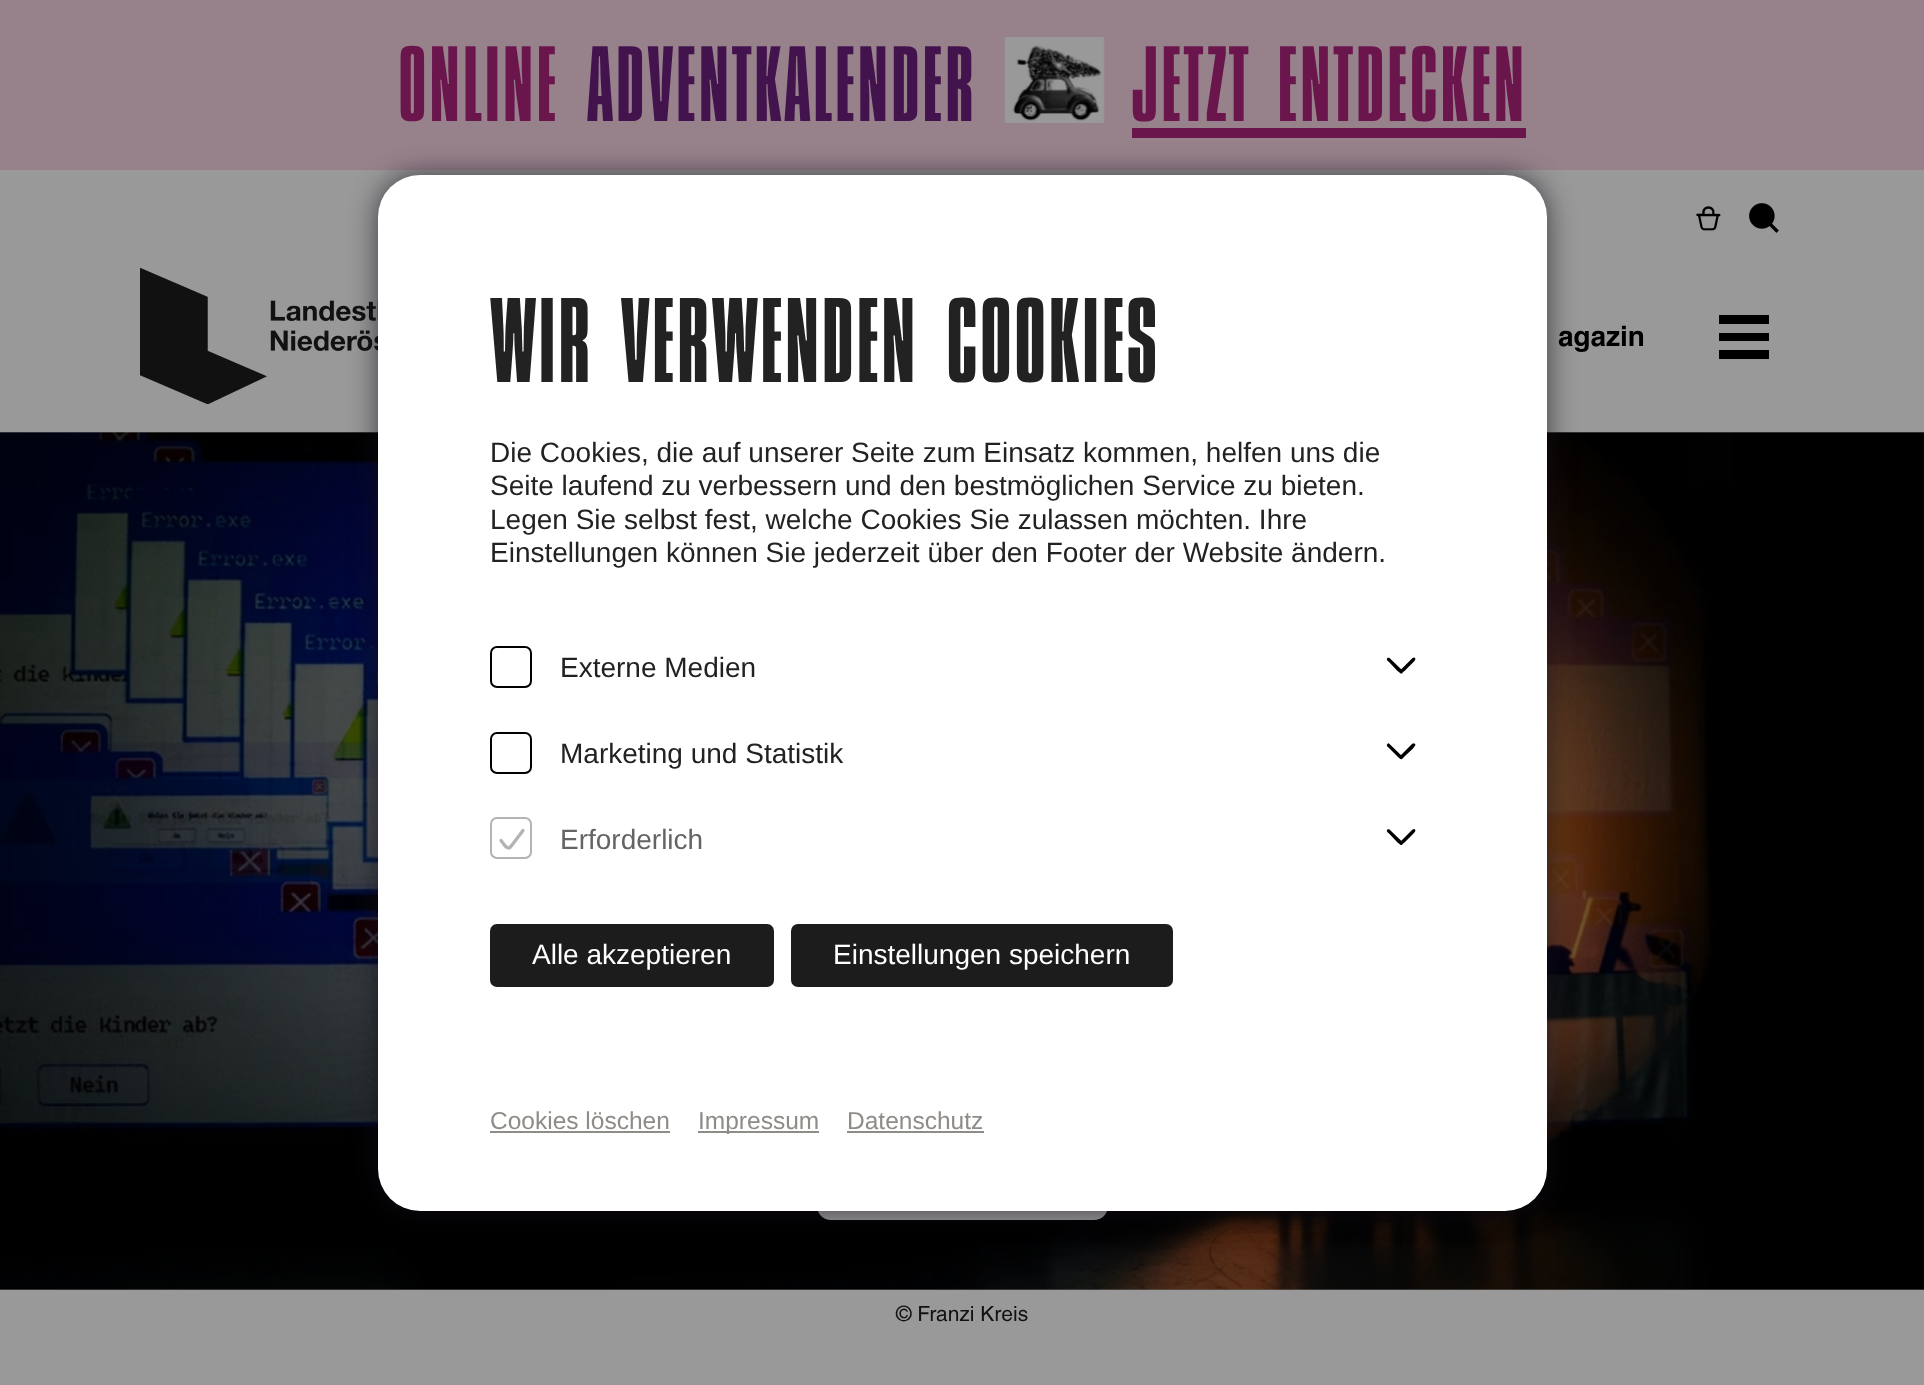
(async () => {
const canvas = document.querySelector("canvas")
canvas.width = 1924
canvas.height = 1385
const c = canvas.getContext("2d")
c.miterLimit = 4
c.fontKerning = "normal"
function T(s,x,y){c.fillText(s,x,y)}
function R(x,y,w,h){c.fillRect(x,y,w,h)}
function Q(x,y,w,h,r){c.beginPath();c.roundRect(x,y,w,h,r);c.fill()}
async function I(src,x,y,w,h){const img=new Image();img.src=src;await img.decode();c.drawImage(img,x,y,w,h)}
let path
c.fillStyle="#999"
R(0,0,1924,1385)
c.fillStyle="#6b6b6b"
R(0,432,1924,858)
c.fillStyle="#97828c"
R(0,0,1924,170)
c.letterSpacing="2.25px"
c.font="300 112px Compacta"
c.fillStyle="#6a164d"
T("ONLINE",398,121)
c.fillStyle="#43134e"
T("ADVENTKALENDER",587,121)
await I("1.png",1004,37,101,86)
c.fillStyle="#6a164d"
T("JETZT ENTDECKEN",1132,121)
R(1132,128,394,10)
await I("2.png",1696,206,25,25)
await I("3.png",1749,203,30,30)
await I("4.png",140,268,238,136)
c.letterSpacing="0px"
c.font="bold 28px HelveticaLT"
c.fillStyle="#000"
T("agazin",1558,346)
R(1719,315,50,9)
R(1719,333,50,8)
R(1719,350,50,9)
await I("5.png",0,432,1924,858)
c.fillStyle="#999"
Q(817,1143,291,77,14)
c.font="21px HelveticaLT"
c.fillStyle="#111"
T("© Franzi Kreis",896,1321)
c.fillStyle="#140d18b0"
c.filter="blur(14px)"
c.beginPath()
c.roundRect(378,175,1169,1036,42)
c.fill()
c.filter="none"
c.fillStyle="#fff"
Q(378,175,1169,1036,42)
c.letterSpacing="1.75px"
c.font="300 126px Compacta"
c.fillStyle="#222"
T("WIR VERWENDEN COOKIES",490,382)
c.letterSpacing="0px"
c.font="28px Liberation Sans"
T("Die Cookies, die auf unserer Seite zum Einsatz kommen, helfen uns die",490,462)
T("Seite laufend zu verbessern und den bestmöglichen Service zu bieten.",490,495)
T("Legen Sie selbst fest, welche Cookies Sie zulassen möchten. Ihre",490,529)
T("Einstellungen können Sie jederzeit über den Footer der Website ändern.",490,562)
c.beginPath()
c.roundRect(491,647,40,40,6)
c.strokeStyle="#000"
c.lineWidth=2
c.stroke()
T("Externe Medien",560,677)
c.fillStyle="#000"
path = new Path2D("M1389.5 658l13 12.5v2c-1 2.5-4-1-5-1.5l-8-8.5c-1-1-4-3-2-4.5c.5-.5 1.5-.5 2 0z")
c.fill(path)
path = new Path2D("M1400 670.5l12.5-12.5l2-.5c2.5 1.5-1 4.5-1.5 5l-8.5 8.5c-1 .5-3 3.5-4.5 2c-.5-1-.5-2 0-2.5z")
c.fill(path)
c.beginPath()
c.roundRect(491,733,40,40,6)
c.stroke()
c.fillStyle="#222"
T("Marketing und Statistik",560,763)
c.fillStyle="#000"
path = new Path2D("M1389.5 744l13 12.5v1.5c-1 3-4-.5-5-1.5l-8-8c-1-1-4-3-2-4.5c.5-1 1.5-1 2 0z")
c.fill(path)
path = new Path2D("M1400 756l12.5-12.5h2c2.5 1-1 4-1.5 5l-8.5 8c-1 1-3 4-4.5 2c-.5-.5-.5-1.5 0-2.5z")
c.fill(path)
c.beginPath()
c.roundRect(491,818,40,40,6)
c.strokeStyle="#b3b3b3"
c.stroke()
path = new Path2D("M501 840.5l3 4c1.5 2 4 5 6.5 2.5l12.5-16.5")
c.lineWidth=3.3
c.lineCap="round"
c.lineJoin="round"
c.stroke(path)
c.fillStyle="#646464"
T("Erforderlich",560,849)
c.fillStyle="#000"
path = new Path2D("M1389.5 829.5l13 12.5v2c-1 2.5-4-1-5-1.5l-8-8.5c-1-1-4-3-2-4.5c.5-.5 1.5-.5 2 0z")
c.fill(path)
path = new Path2D("M1400 842l12.5-12.5l2-.5c2.5 1.5-1 4.5-1.5 5l-8.5 8.5c-1 .5-3 3.5-4.5 2c-.5-1-.5-2 0-2.5z")
c.fill(path)
c.fillStyle="#1c1c1c"
Q(490,924,284,63,7)
c.fillStyle="#fff"
T("Alle akzeptieren",532,964)
c.fillStyle="#1c1c1c"
Q(791,924,382,63,7)
c.fillStyle="#fff"
T("Einstellungen speichern",833,964)
c.font="24.5px Liberation Sans"
c.fillStyle="#8f8c88"
T("Cookies löschen",490,1129)
R(490,1131,180,2)
R(698,1131,121,2)
T("Impressum",698,1129)
T("Datenschutz",847,1129)
R(847,1131,137,2)
})()
